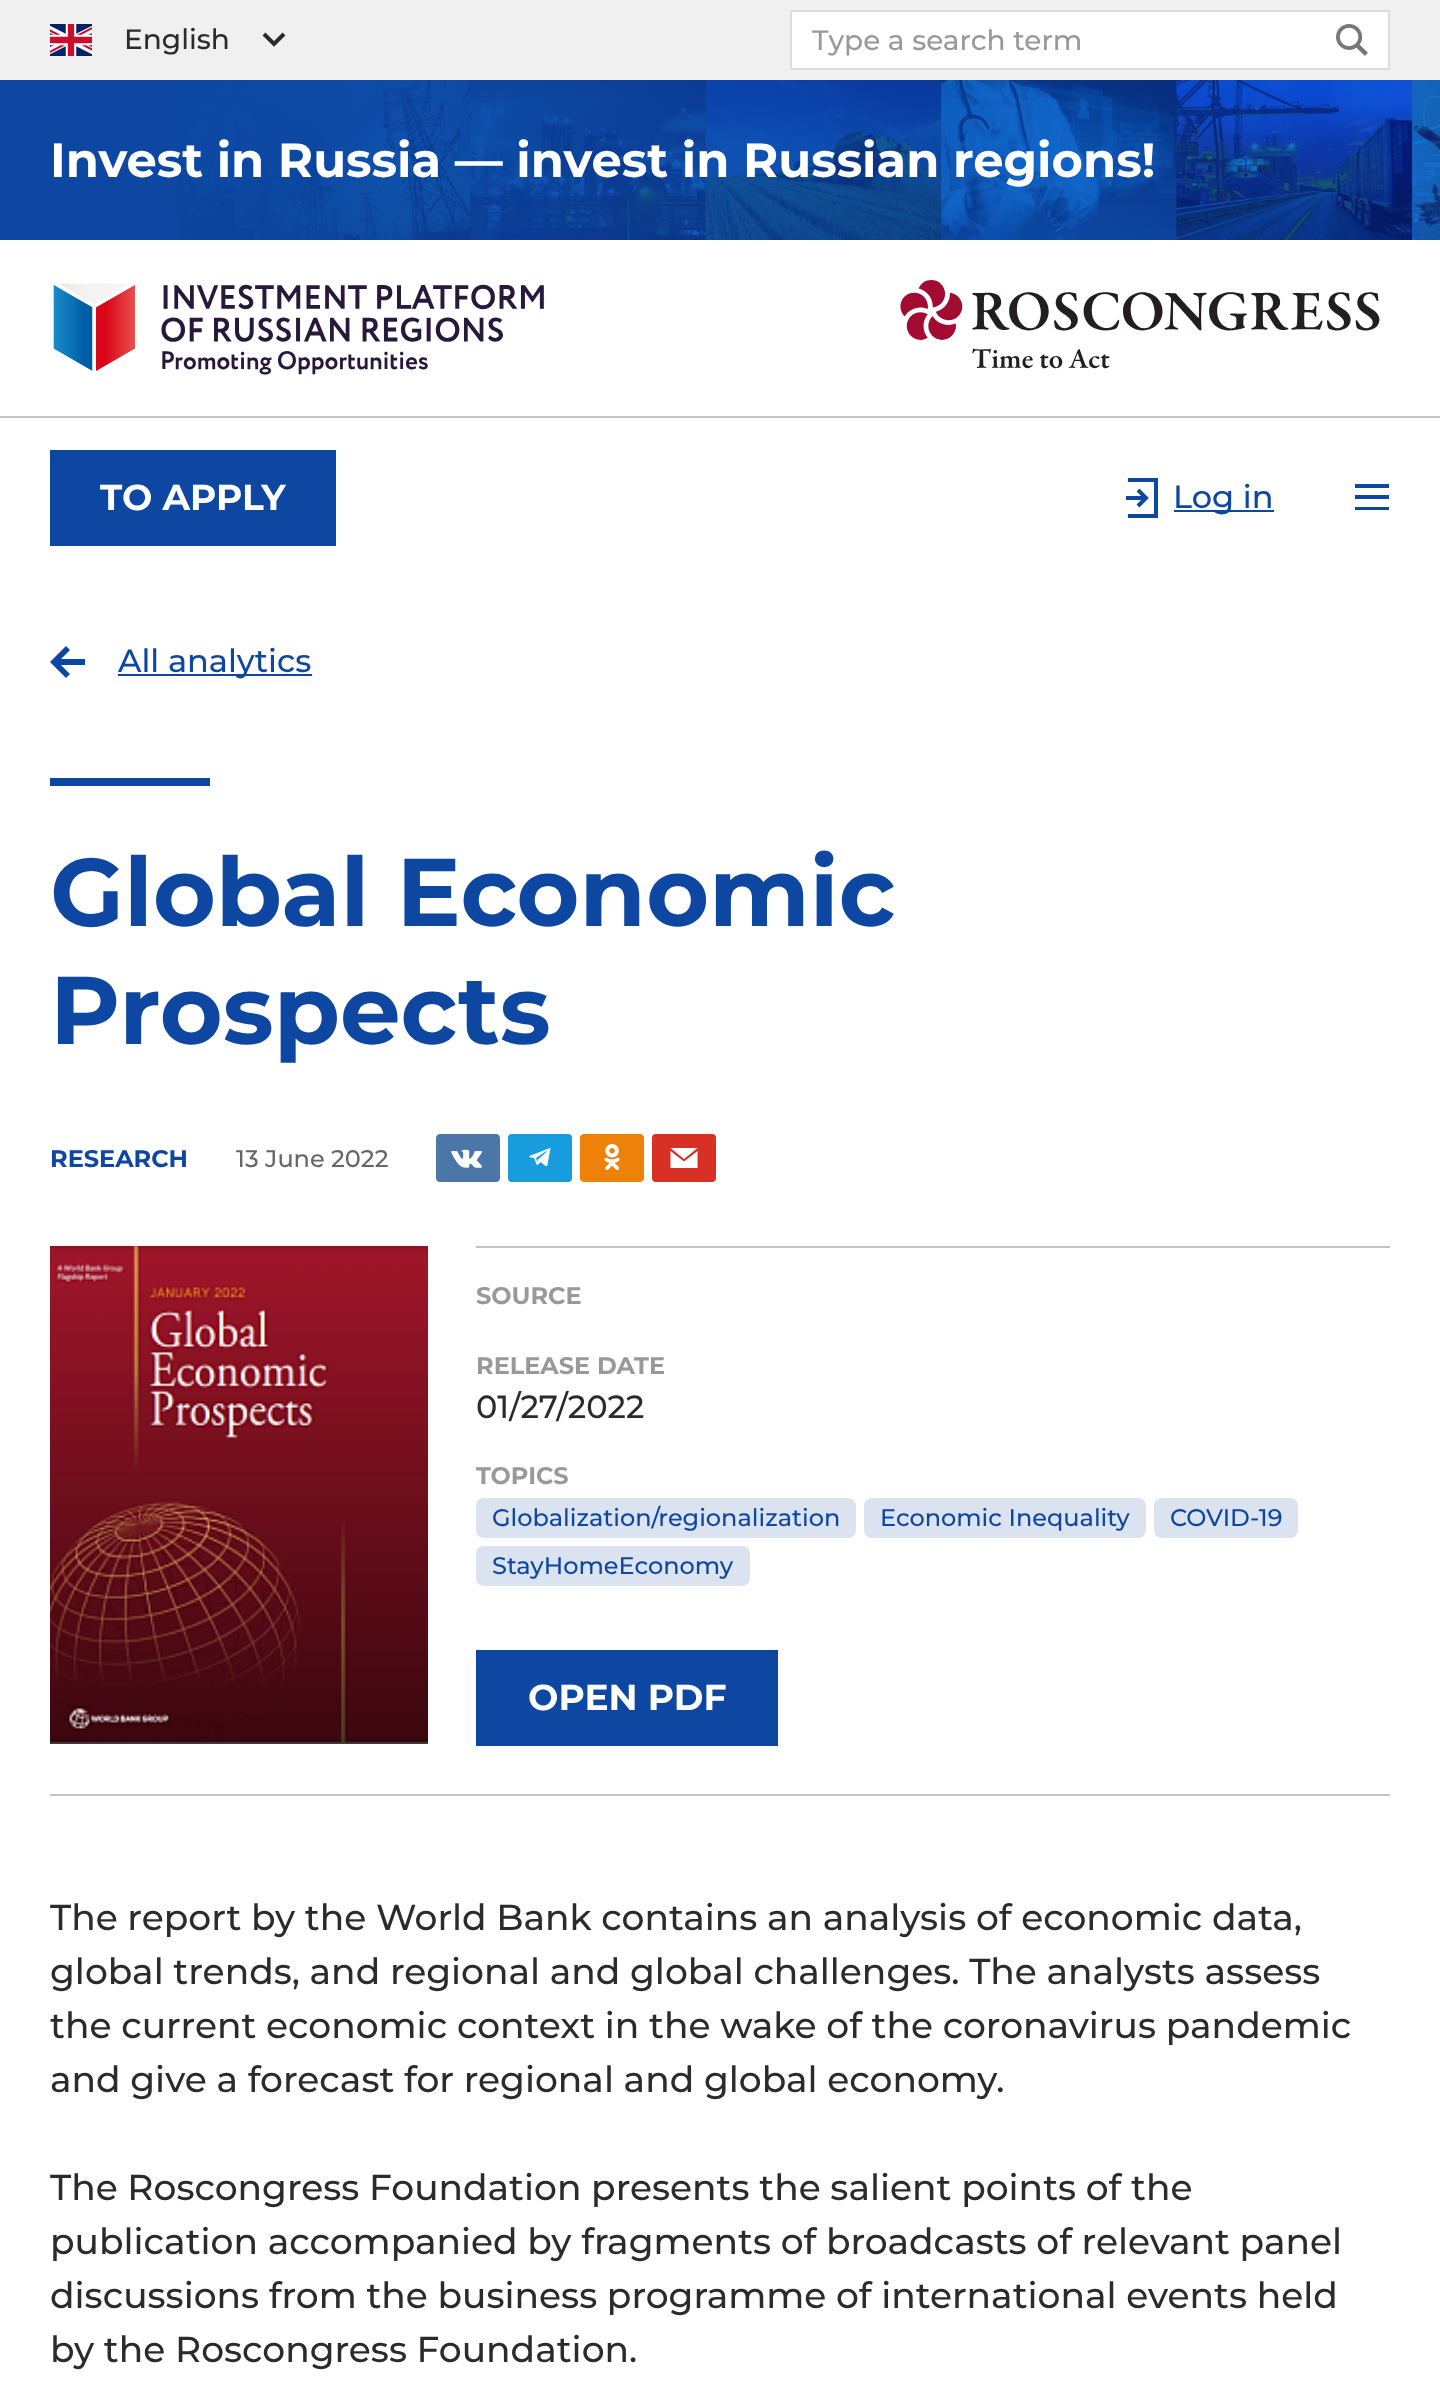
(async () => {
const canvas = document.querySelector("canvas")
canvas.width = 1440
canvas.height = 2389
const c = canvas.getContext("2d")
c.miterLimit = 4
c.fontKerning = "normal"
function T(s,x,y){c.fillText(s,x,y)}
function R(x,y,w,h){c.fillRect(x,y,w,h)}
function Q(x,y,w,h,r){c.beginPath();c.roundRect(x,y,w,h,r);c.fill()}
async function I(src,x,y,w,h){const img=new Image();img.src=src;await img.decode();c.drawImage(img,x,y,w,h)}
let path
c.fillStyle="#fff"
R(0,0,1440,2389)
c.fillStyle="#f0f0f0"
R(0,0,1440,80)
await I("1.png",50,24,42,32)
c.font="500 28px Montserrat"
c.fillStyle="#2b2b2b"
T("English",124,49)
path = new Path2D("M284 34l-10 10l-10-10")
c.strokeStyle="#2b2b2b"
c.lineWidth=4
c.stroke(path)
c.fillStyle="#fff"
c.beginPath()
c.rect(791,11,598,58)
c.fill()
c.strokeStyle="#ddd"
c.lineWidth=2
c.stroke()
c.fillStyle="#999"
T("Type a search term",812,50)
await I("2.png",1336,24,32,32)
c.fillStyle="#0d47a1"
R(0,80,178,160)
await I("3.png",178,80,1262,160)
c.font="bold 48px Montserrat"
c.fillStyle="#fff"
T("Invest in Russia — invest in Russian regions!",50,177)
await I("4.png",53,283,491,92)
await I("5.png",900,280,480,89)
c.fillStyle="#c4c4c4"
R(0,416,1440,2)
c.fillStyle="#0d47a1"
R(50,450,286,96)
c.font="bold 36px Montserrat"
c.fillStyle="#fff"
T("TO APPLY",100,510)
c.fillStyle="#0d47a1"
R(1128,478,30,4)
R(1126,496,18,4)
R(1128,514,30,4)
R(1154,478,4,40)
path = new Path2D("M1138 490l8 8l-8 8")
c.strokeStyle="#0d47a1"
c.lineWidth=4
c.stroke(path)
R(1174,510,100,2)
c.font="500 32px Montserrat"
T("Log in",1173,508)
R(1355,484,34,4)
R(1355,495,34,4)
R(1355,507,34,3)
path = new Path2D("M66 678l4-4l-9-9h24v-6h-24l9-9l-4-4l-16 16z")
c.fill(path)
R(118,674,194,2)
T("All analytics",118,672)
R(50,778,160,8)
c.font="bold 96px Montserrat"
T("Global Economic",50,926)
T("Prospects",50,1044)
c.font="bold 24px Montserrat"
T("RESEARCH",50,1167)
c.font="500 24px Montserrat"
c.fillStyle="#666"
T("13 June 2022",236,1167)
await I("6.png",436,1134,64,48)
c.fillStyle="#179cde"
Q(508,1134,64,48,4)
c.fillStyle="#fff"
path = new Path2D("M545.5 1166c2.5 1.5 2.5-4 2.5-4.5l2.5-13v-.5h-.5l-15.5 6c-8.5 3-6 2.5 0 4.5c2.5 7 1.5 8.5 6 3.5zm-9.5-8l1.5 5v-3l9.5-8.5l-.5-.5z")
c.fill(path,"evenodd")
await I("7.png",580,1134,64,48)
c.fillStyle="#d93025"
Q(652,1134,64,48,4)
c.fillStyle="#fff"
path = new Path2D("M684 1159l-13.5-11h27zm0 2.5l-13.5-10.5v17h27v-17z")
c.fill(path)
c.fillStyle="#c4c4c4"
R(50,1794,1340,2)
await I("8.png",50,1246,378,498)
R(476,1246,914,2)
c.font="bold 24px Montserrat"
c.fillStyle="#999"
T("SOURCE",476,1304)
T("RELEASE DATE",476,1374)
c.font="500 32px Montserrat"
c.fillStyle="#2b2b2b"
T("01/27/2022",476,1418)
c.font="bold 24px Montserrat"
c.fillStyle="#999"
T("TOPICS",476,1484)
c.fillStyle="#dbe3f1"
Q(476,1498,380,40,8)
c.font="500 24px Montserrat"
c.fillStyle="#0d47a1"
T("Globalization/regionalization",492,1526)
c.fillStyle="#dbe3f1"
Q(864,1498,282,40,8)
c.fillStyle="#0d47a1"
T("Economic Inequality",880,1526)
c.fillStyle="#dbe3f1"
Q(1154,1498,144,40,8)
c.fillStyle="#0d47a1"
T("COVID-19",1170,1526)
c.fillStyle="#dbe3f1"
Q(476,1546,274,40,8)
c.fillStyle="#0d47a1"
T("StayHomeEconomy",492,1574)
R(476,1650,302,96)
c.font="bold 36px Montserrat"
c.fillStyle="#fff"
T("OPEN PDF",528,1710)
c.font="500 36px Montserrat"
c.fillStyle="#2b2b2b"
T("The report by the World Bank contains an analysis of economic data,",50,1930)
T("global trends, and regional and global challenges. The analysts assess",50,1984)
T("the current economic context in the wake of the coronavirus pandemic",50,2038)
T("and give a forecast for regional and global economy.",50,2092)
T("The Roscongress Foundation presents the salient points of the",50,2200)
T("publication accompanied by fragments of broadcasts of relevant panel",50,2254)
T("discussions from the business programme of international events held",50,2308)
T("by the Roscongress Foundation.",50,2362)
})()
